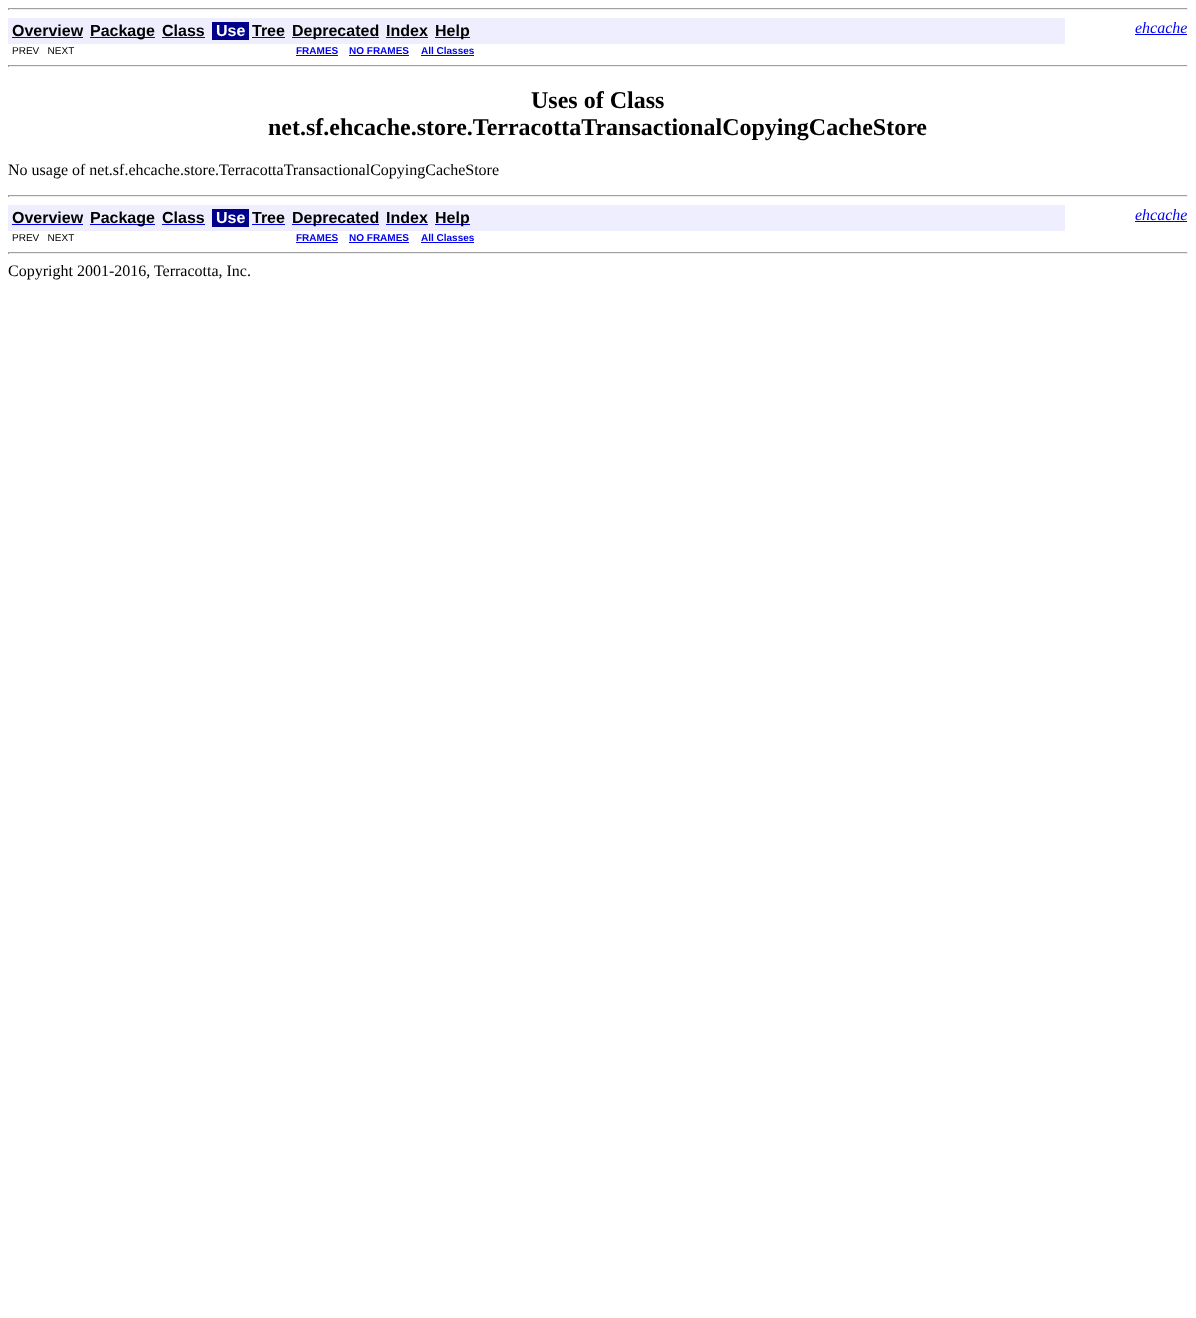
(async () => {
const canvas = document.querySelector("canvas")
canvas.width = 1196
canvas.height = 1318
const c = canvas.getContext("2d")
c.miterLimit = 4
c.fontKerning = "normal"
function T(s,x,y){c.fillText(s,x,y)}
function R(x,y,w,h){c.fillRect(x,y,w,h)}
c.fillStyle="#fff"
R(0,0,1196,1318)
c.fillStyle="#9f9f9f"
R(8,8,1180,1)
c.fillStyle="#eee"
R(1187,8,1,2)
R(8,9,1180,1)
c.fillStyle="#9f9f9f"
R(8,8,1,2)
c.fillStyle="#eef"
R(8,18,1057,26)
c.font="bold 16px Liberation Sans"
c.fillStyle="#000"
T("Overview",12,36)
c.fillStyle="#00e"
R(12,37,71,1)
R(90,37,65,1)
c.fillStyle="#000"
T("Package",90,36)
T("Class",162,36)
c.fillStyle="#00e"
R(162,37,43,1)
c.fillStyle="#00008b"
R(212,22,37,18)
c.fillStyle="#fff"
T("Use",216,36)
c.fillStyle="#000"
T("Tree",252,36)
c.fillStyle="#00e"
R(252,37,33,1)
R(292,37,87,1)
c.fillStyle="#000"
T("Deprecated",292,36)
T("Index",386,36)
c.fillStyle="#00e"
R(386,37,42,1)
R(435,37,35,1)
c.fillStyle="#000"
T("Help",435,36)
c.font="italic 16px Liberation Serif"
c.fillStyle="#00e"
T("ehcache",1135,33)
R(1135,34,52,1)
c.font="10px Liberation Sans"
c.fillStyle="#000"
T("PREV   NEXT",12,54)
c.font="bold 10px Liberation Sans"
c.fillStyle="#00e"
T("FRAMES",296,54)
R(296,55,42,1)
T("NO FRAMES",349,54)
R(349,55,60,1)
T("All Classes",421,54)
R(421,55,53,1)
c.fillStyle="#9f9f9f"
R(8,65,1180,1)
c.fillStyle="#eee"
R(1187,65,1,2)
R(8,66,1180,1)
c.fillStyle="#9f9f9f"
R(8,65,1,2)
c.font="bold 24px Liberation Serif"
c.fillStyle="#000"
T("Uses of Class",531,108)
T("net.sf.ehcache.store.TerracottaTransactionalCopyingCacheStore",268,135)
c.font="16px Liberation Serif"
T("No usage of net.sf.ehcache.store.TerracottaTransactionalCopyingCacheStore",8,175)
c.fillStyle="#9f9f9f"
R(8,195,1180,1)
c.fillStyle="#eee"
R(1187,195,1,2)
R(8,196,1180,1)
c.fillStyle="#9f9f9f"
R(8,195,1,2)
c.fillStyle="#eef"
R(8,205,1057,26)
c.font="bold 16px Liberation Sans"
c.fillStyle="#000"
T("Overview",12,223)
c.fillStyle="#00e"
R(12,224,71,1)
R(90,224,65,1)
c.fillStyle="#000"
T("Package",90,223)
T("Class",162,223)
c.fillStyle="#00e"
R(162,224,43,1)
c.fillStyle="#00008b"
R(212,209,37,18)
c.fillStyle="#fff"
T("Use",216,223)
c.fillStyle="#000"
T("Tree",252,223)
c.fillStyle="#00e"
R(252,224,33,1)
R(292,224,87,1)
c.fillStyle="#000"
T("Deprecated",292,223)
T("Index",386,223)
c.fillStyle="#00e"
R(386,224,42,1)
R(435,224,35,1)
c.fillStyle="#000"
T("Help",435,223)
c.font="italic 16px Liberation Serif"
c.fillStyle="#00e"
T("ehcache",1135,220)
R(1135,221,52,1)
c.font="10px Liberation Sans"
c.fillStyle="#000"
T("PREV   NEXT",12,241)
c.font="bold 10px Liberation Sans"
c.fillStyle="#00e"
T("FRAMES",296,241)
R(296,242,42,1)
T("NO FRAMES",349,241)
R(349,242,60,1)
T("All Classes",421,241)
R(421,242,53,1)
c.fillStyle="#9f9f9f"
R(8,252,1180,1)
c.fillStyle="#eee"
R(1187,252,1,2)
R(8,253,1180,1)
c.fillStyle="#9f9f9f"
R(8,252,1,2)
c.font="16px Liberation Serif"
c.fillStyle="#000"
T("Copyright 2001-2016, Terracotta, Inc.",8,276)
})()
